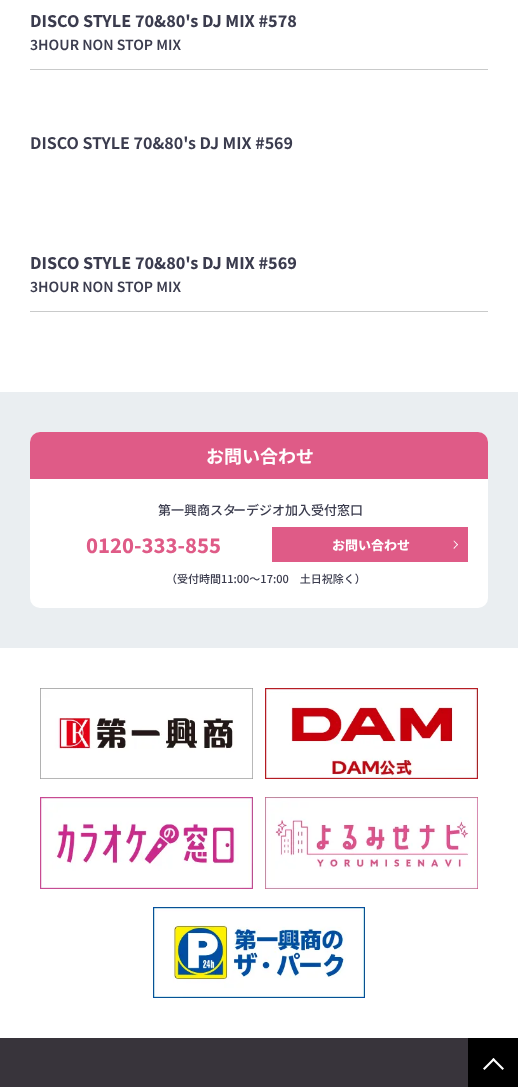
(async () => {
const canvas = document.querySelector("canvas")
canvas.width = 518
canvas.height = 1087
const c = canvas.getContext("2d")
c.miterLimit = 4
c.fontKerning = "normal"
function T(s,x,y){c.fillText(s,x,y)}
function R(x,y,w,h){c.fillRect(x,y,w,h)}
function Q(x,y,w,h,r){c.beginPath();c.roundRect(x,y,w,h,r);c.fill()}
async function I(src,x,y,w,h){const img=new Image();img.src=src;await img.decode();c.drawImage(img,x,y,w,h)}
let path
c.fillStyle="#fff"
R(0,0,518,1087)
c.fillStyle="#c9caca"
R(30,69,458,1)
c.font="800 16px Noto Sans JP"
c.fillStyle="#3b3c4e"
T("DISCO STYLE 70&80's DJ MIX #578",30,27)
c.font="600 14px Noto Sans JP"
T("3HOUR NON STOP MIX",30,50)
c.font="bold 16px Noto Sans JP"
T("DISCO STYLE 70&80's DJ MIX #569",30,149)
c.fillStyle="#c9caca"
R(30,311,458,1)
c.font="800 16px Noto Sans JP"
c.fillStyle="#3b3c4e"
T("DISCO STYLE 70&80's DJ MIX #569",30,269)
c.font="600 14px Noto Sans JP"
T("3HOUR NON STOP MIX",30,292)
c.fillStyle="#eaeef1"
R(0,392,518,256)
c.fillStyle="#fff"
Q(30,432,458,176,10)
c.fillStyle="#df5b87"
c.beginPath()
c.roundRect(30,432,458,47,[10,10,0,0])
c.fill()
c.font="bold 18px Noto Sans JP"
c.fillStyle="#fff"
T("お問い合わせ",206,463)
c.font="500 13px Noto Sans JP"
c.fillStyle="#3b3c4e"
T("第一興商スタ",158,515)
T("ーデジオ加入受付窓口",233,515)
c.font="800 20px Noto Sans JP"
c.fillStyle="#df5b87"
T("0120-333-855",86,553)
R(272,527,196,35)
c.font="800 13px Noto Sans JP"
c.fillStyle="#fff"
T("お問い合わせ",332,550)
path = new Path2D("M454 540.5l4 4l-.5 1l-4-4.5z")
c.fill(path)
path = new Path2D("M457.5 544l.5 .5l-4 4.5l-.5-1z")
c.fill(path)
c.font="500 11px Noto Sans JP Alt"
c.fillStyle="#3b3c4e"
T("（受付時間11:00～17:00　土日祝除く）",166,583)
await I("1.png",40,688,213,91)
await I("2.png",265,688,213,91)
await I("3.png",40,797,213,92)
await I("4.png",265,797,213,92)
await I("5.png",153,907,212,91)
c.fillStyle="#38343b"
R(0,1038,468,49)
c.fillStyle="#000"
R(468,1038,50,49)
c.fillStyle="#fff"
path = new Path2D("M493.5 1058l10.5 10.5l-1.5 1.5l-10.5-10.5z")
c.fill(path)
path = new Path2D("M493.5 1058l1.5 1.5l-10.5 10.5l-1.5-1.5z")
c.fill(path)
})()
